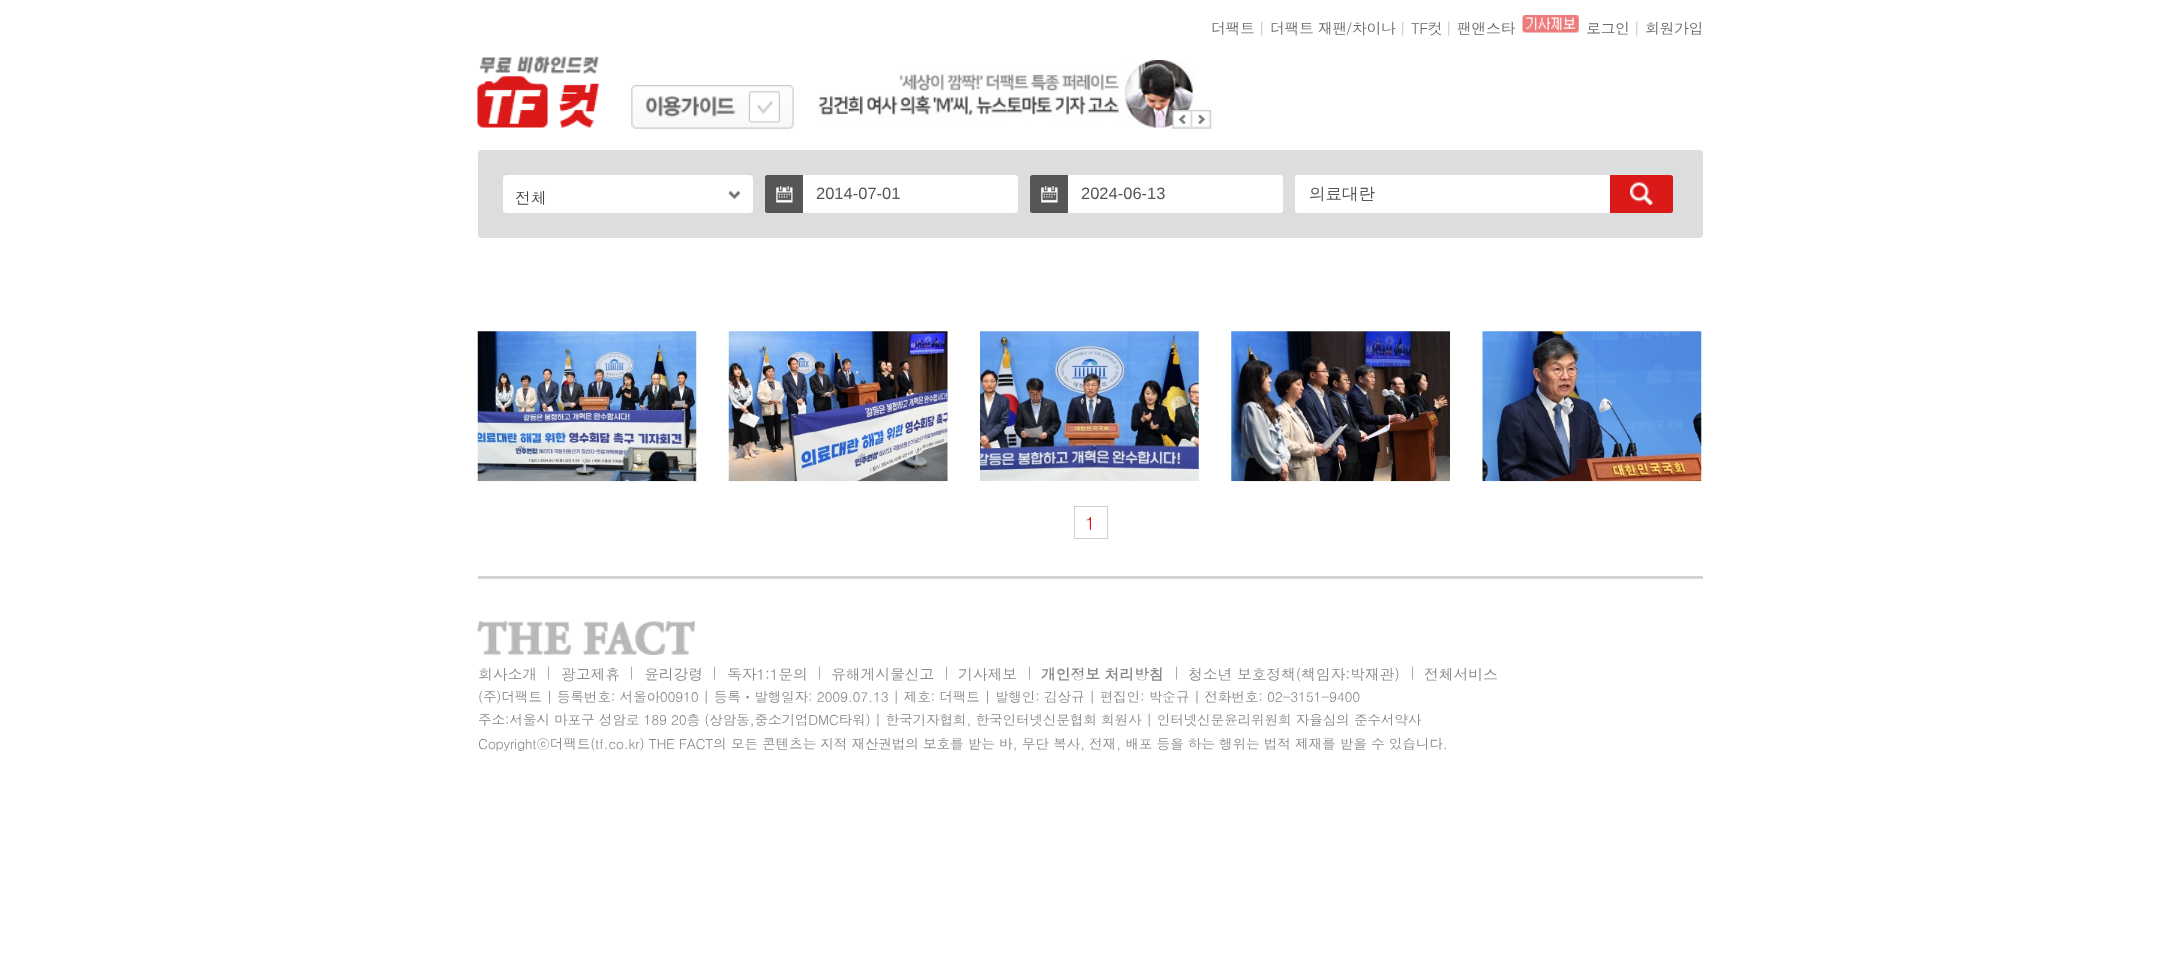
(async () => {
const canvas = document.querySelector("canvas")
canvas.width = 2179
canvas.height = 980
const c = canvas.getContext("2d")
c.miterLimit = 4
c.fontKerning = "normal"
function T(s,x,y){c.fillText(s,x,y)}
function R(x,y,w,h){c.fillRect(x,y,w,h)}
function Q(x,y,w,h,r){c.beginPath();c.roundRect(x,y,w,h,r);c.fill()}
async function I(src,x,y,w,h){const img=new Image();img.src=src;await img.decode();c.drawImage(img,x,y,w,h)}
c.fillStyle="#fff"
R(0,0,2179,980)
c.letterSpacing="-0.5px"
c.font="15px Dotum"
c.fillStyle="#666"
T("더팩트",1211,34)
c.fillStyle="#c2c2c2"
T("|",1258,34)
c.fillStyle="#666"
T("더팩트 재팬",1270,34)
c.fillStyle="#5e5e5e"
T("/",1346,34)
c.fillStyle="#666"
T("차이나",1352,34)
c.fillStyle="#c2c2c2"
T("|",1399,34)
c.fillStyle="#666"
T("TF컷",1411,34)
c.fillStyle="#c2c2c2"
T("|",1445,34)
c.fillStyle="#666"
T("팬앤스타",1457,34)
await I("1.png",1522,15,57,18)
T("로그인",1586,34)
c.fillStyle="#c2c2c2"
T("|",1633,34)
c.fillStyle="#666"
T("회원가입",1645,34)
await I("2.png",477,56,122,72)
await I("3.png",631,85,163,44)
await I("4.png",748,91,32,32)
await I("5.png",818,60,378,68)
await I("6.png",1172,110,21,19)
await I("7.png",1192,110,20,19)
c.fillStyle="#dcdddf"
Q(478,150,1225,88,4)
c.fillStyle="#fff"
Q(503,175,250,38,4)
c.letterSpacing="0px"
c.font="16px Dotum"
c.fillStyle="#444"
T("전체",515,204)
await I("8.png",728,191,12,8)
c.fillStyle="#565656"
c.beginPath()
c.roundRect(765,175,38,38,[2.5,0,0,2.5])
c.fill()
await I("9.png",776,186,17,17)
c.fillStyle="#fff"
c.beginPath()
c.roundRect(803.5,175.5,214,37,[0,2,2,0])
c.fill()
c.strokeStyle="#fff"
c.stroke()
c.font="16.5px Liberation Sans"
c.fillStyle="#555"
T("2014-07-01",816,199)
c.fillStyle="#565656"
c.beginPath()
c.roundRect(1030,175,38,38,[2.5,0,0,2.5])
c.fill()
await I("9.png",1041,186,17,17)
c.fillStyle="#fff"
c.beginPath()
c.roundRect(1068.5,175.5,214,37,[0,2,2,0])
c.fill()
c.stroke()
c.fillStyle="#555"
T("2024-06-13",1081,199)
c.fillStyle="#fff"
c.beginPath()
c.roundRect(1295.5,175.5,314,37,[2,0,0,2])
c.fill()
c.stroke()
c.font="500 16.5px WenQuanYi Zen Hei"
c.fillStyle="#555"
T("의료대란",1309,199)
c.fillStyle="#dc1919"
c.beginPath()
c.roundRect(1610,175,63,38,[0,2.5,2.5,0])
c.fill()
await I("10.png",1630,182,23,23)
await I("11.png",477,331,220,151)
await I("12.png",728,331,220,151)
await I("13.png",980,331,219,150)
await I("14.png",1231,331,219,151)
await I("15.png",1482,331,220,151)
c.strokeStyle="#cfcfcf"
c.strokeRect(1074.5,506.5,33,32)
c.font="18px Dotum"
c.fillStyle="#db191a"
T("1",1085,530)
c.fillStyle="#d4d4d4"
R(478,576,1225,3)
await I("16.png",477,621,218,34)
c.letterSpacing="-0.28px"
c.font="15px Dotum"
c.fillStyle="#888"
T("회사소개",478,680)
c.font="13.75px Dotum"
c.fillStyle="#999"
T("|",545,678)
c.font="15px Dotum"
c.fillStyle="#888"
T("광고제휴",561,680)
c.font="13.75px Dotum"
c.fillStyle="#999"
T("|",628,678)
c.font="15px Dotum"
c.fillStyle="#888"
T("윤리강령",644,680)
c.font="13.75px Dotum"
c.fillStyle="#999"
T("|",711,678)
c.font="15px Dotum"
c.fillStyle="#888"
T("독자1:1문의",727,680)
c.font="13.75px Dotum"
c.fillStyle="#999"
T("|",816,678)
c.font="15px Dotum"
c.fillStyle="#888"
T("유해게시물신고",831,680)
c.font="13.75px Dotum"
c.fillStyle="#999"
T("|",943,678)
c.font="15px Dotum"
c.fillStyle="#888"
T("기사제보",958,680)
c.font="13.75px Dotum"
c.fillStyle="#999"
T("|",1026,678)
c.font="bold 15px Dotum"
c.fillStyle="#888"
T("개인정보 처리방침",1041,680)
c.font="13.75px Dotum"
c.fillStyle="#999"
T("|",1173,678)
c.font="15px Dotum"
c.fillStyle="#888"
T("청소년 보호정책(책임자:박재관)",1188,680)
c.font="13.75px Dotum"
c.fillStyle="#999"
T("|",1409,678)
c.font="15px Dotum"
c.fillStyle="#888"
T("전체서비스",1424,680)
c.font="13.75px Dotum"
T("(주)더팩트 | 등록번호: 서울아00910 | 등록ㆍ발행일자: 2009.07.13 | 제호: 더팩트 | 발행인: 김상규 | 편집인: 박순규 | 전화번호: 02-3151-9400",478,702)
T("주소:서울시 마포구 성암로 189 20층 (상암동,중소기업DMC타워) | 한국기자협회, 한국인터넷신문협회 회원사 | 인터넷신문윤리위원회 자율심의 준수서약사",478,725)
T("Copyrightⓒ더팩트(tf.co.kr) THE FACT의 모든 콘텐츠는 지적 재산권법의 보호를 받는 바, 무단 복사, 전재, 배포 등을 하는 행위는 법적 제재를 받을 수 있습니다.",478,749)
})()
